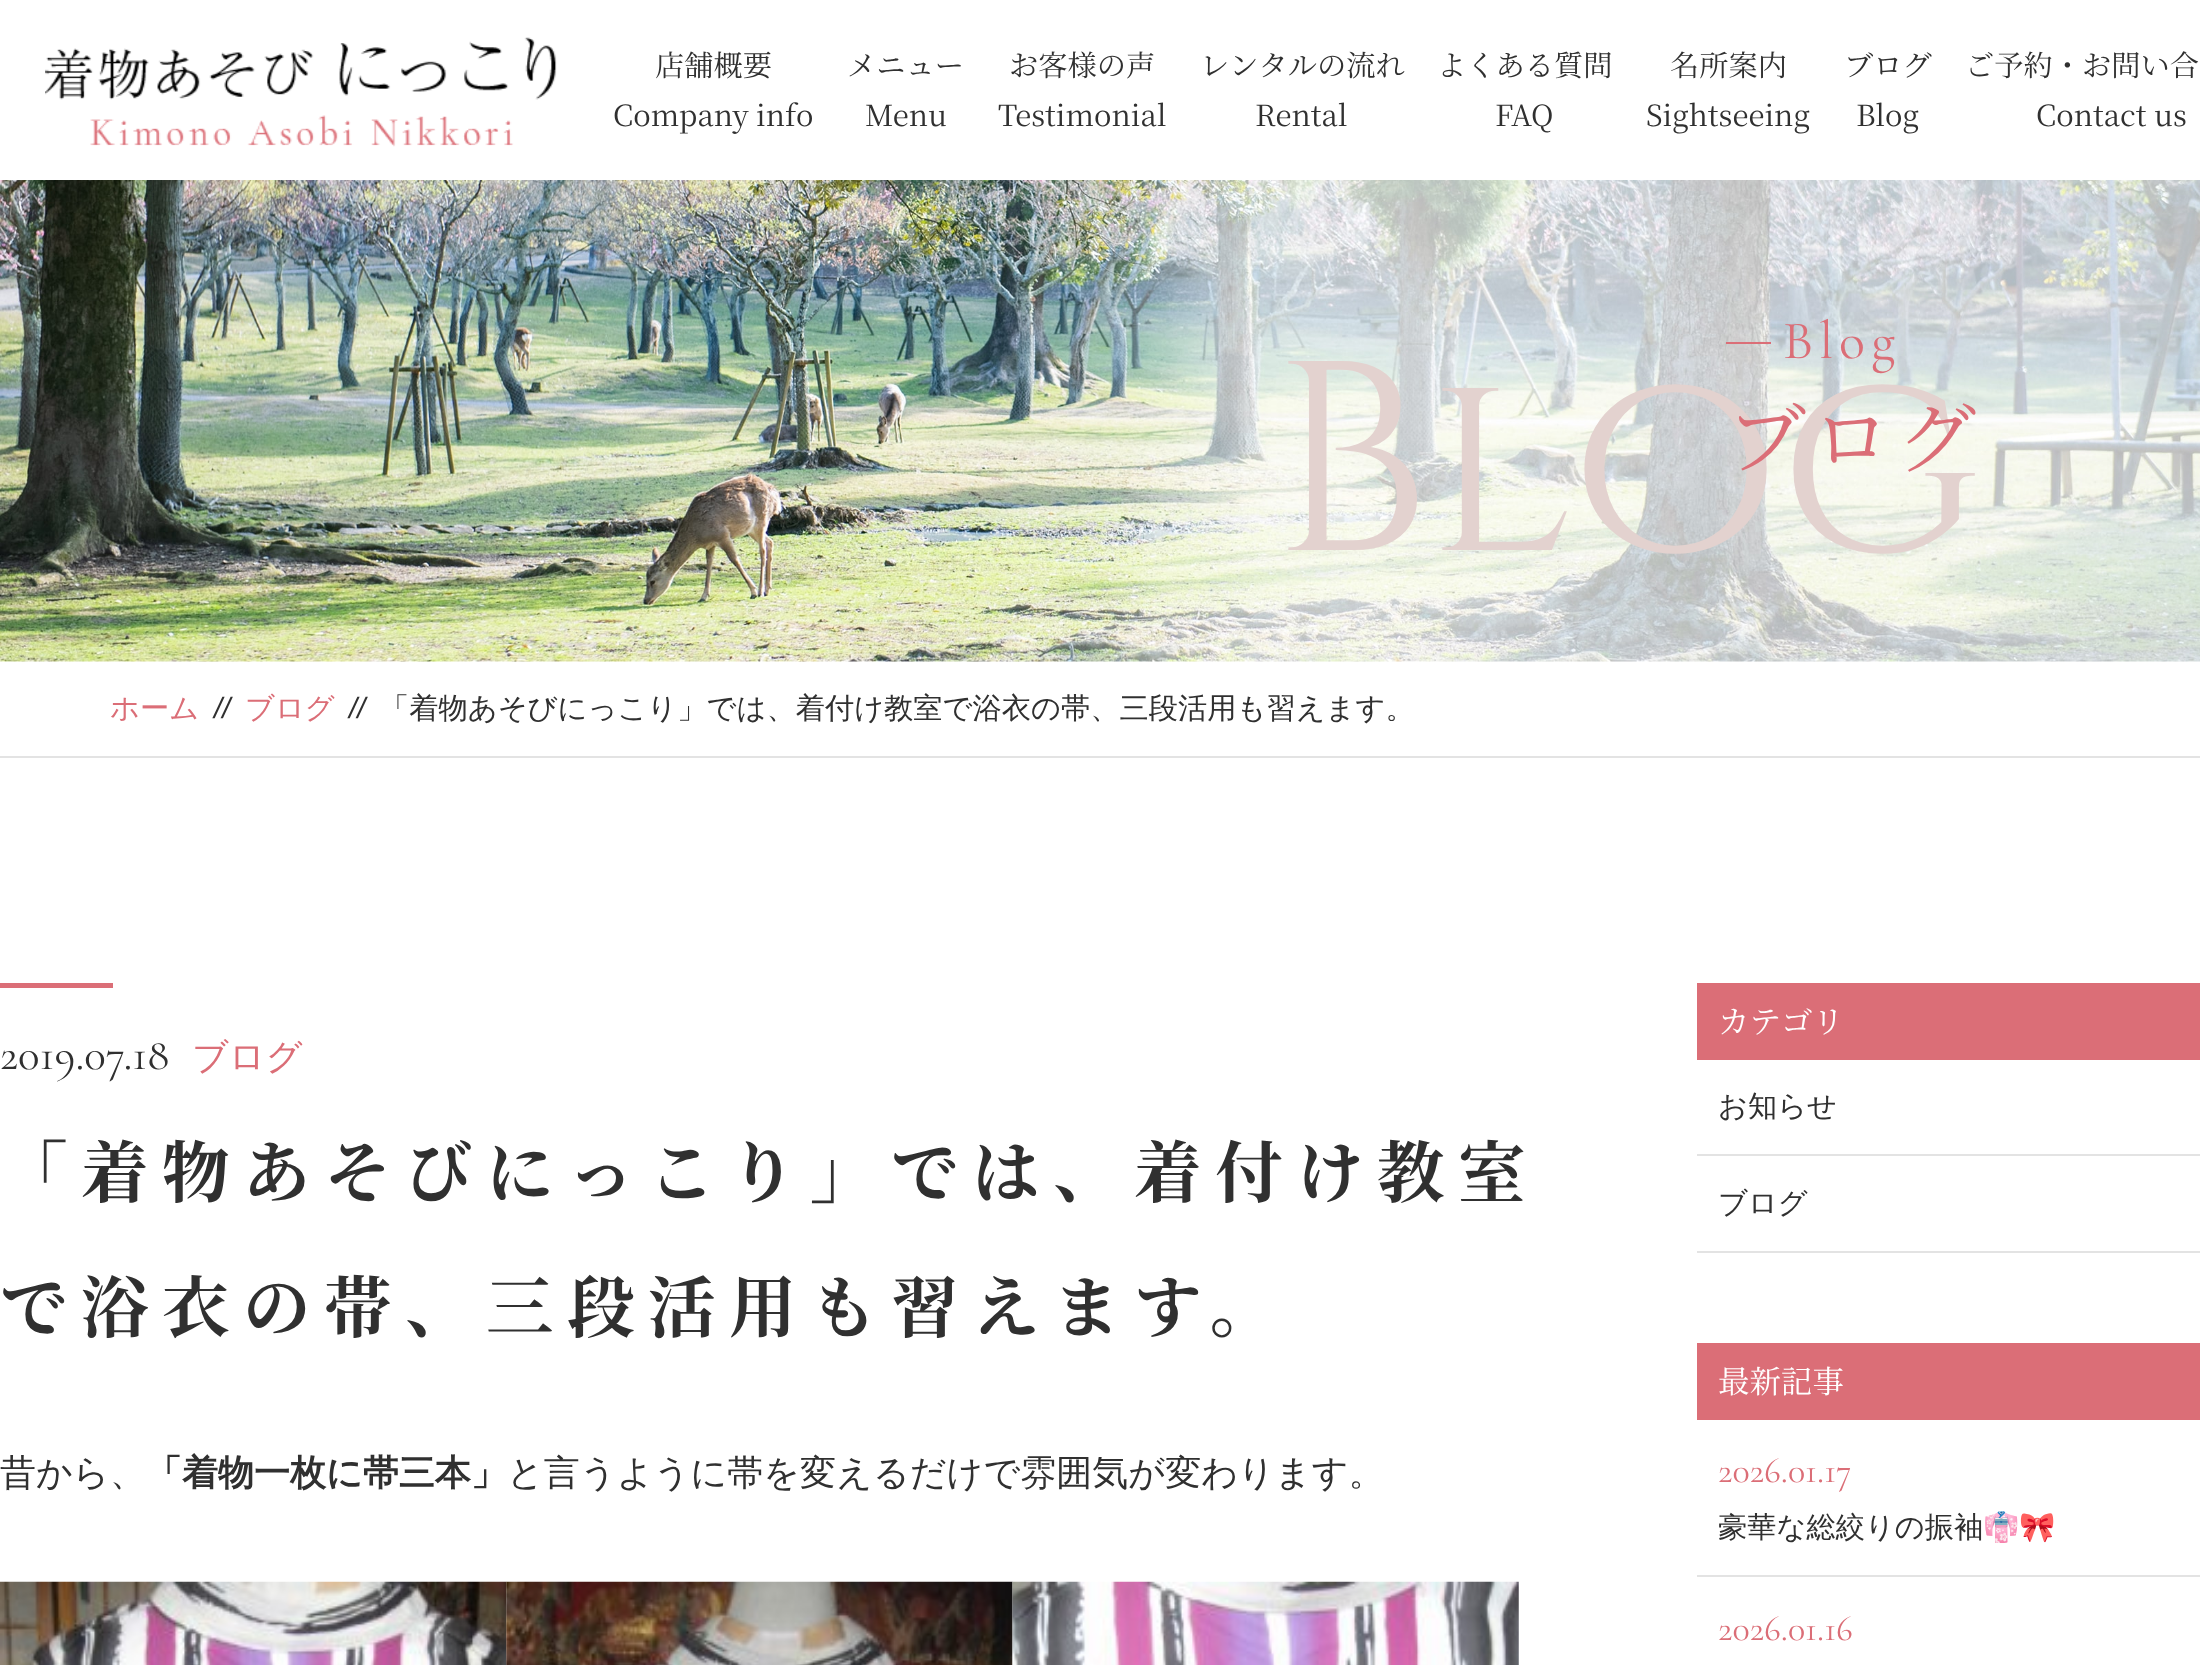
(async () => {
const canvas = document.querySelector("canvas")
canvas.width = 2200
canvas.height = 1665
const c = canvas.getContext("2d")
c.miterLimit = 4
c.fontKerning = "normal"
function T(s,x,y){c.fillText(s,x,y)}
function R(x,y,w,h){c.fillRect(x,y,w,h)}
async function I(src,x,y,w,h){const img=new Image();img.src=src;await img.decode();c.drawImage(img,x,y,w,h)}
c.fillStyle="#fff"
R(0,0,2200,1665)
await I("1.png",45,37,512,110)
c.font="29.25px Noto Serif JP"
c.fillStyle="#303030"
T("店舗概要",655,76)
T("Company info",613,126)
T("メニュー",847,76)
T("Menu",865,126)
T("お客様の声",1009,76)
T("Testimonial",998,126)
T("レンタルの流れ",1200,76)
T("Rental",1255,126)
T("よくある質問",1437,76)
T("FAQ",1495,126)
T("名所案内",1670,76)
T("Sightseeing",1646,126)
T("ブログ",1844,76)
T("Blog",1856,126)
T("ご予約・お問い合",1965,76)
T("Contact us",2036,126)
await I("2.png",0,180,2200,482)
c.fillStyle="#db6e77"
R(1726,342,45,2)
c.letterSpacing="6px"
c.font="300 54px Cormorant Garamond"
T("Blog",1783,358)
c.letterSpacing="0px"
c.font="270px Cinzel"
c.fillStyle="#e3d2cf"
T("Blog",1272,550)
c.letterSpacing="6px"
c.font="79px Noto Serif JP"
c.fillStyle="#db6e77"
T("ブログ",1727,467)
c.fillStyle="#e3e3e3"
R(0,756,2200,2)
c.letterSpacing="0px"
c.font="500 29.25px WenQuanYi Zen Hei"
c.fillStyle="#db6e77"
T("ホーム",110,718)
c.font="italic 29.25px Liberation Sans"
c.fillStyle="#303030"
T("//",214,718)
c.font="500 29.25px WenQuanYi Zen Hei"
c.fillStyle="#db6e77"
T("ブログ",245,718)
c.font="italic 29.25px Liberation Sans"
c.fillStyle="#303030"
T("//",349,718)
c.font="500 29.25px WenQuanYi Zen Hei"
T("「着物あそびにっこり」では、着付け教室で浴衣の帯、三段活用も習えます。",380,718)
c.fillStyle="#db6e77"
R(0,983,113,5)
c.font="300 45px Cormorant Garamond"
c.fillStyle="#303030"
T("2019.07.18",0,1069)
c.font="500 36px WenQuanYi Zen Hei"
c.fillStyle="#db6e77"
T("ブログ",192,1069)
c.letterSpacing="13.5px"
c.font="bold 67.5px Noto Serif JP"
c.fillStyle="#303030"
T("「着物あそびにっこり」では、着付け教室",0,1197)
T("で浴衣の帯、三段活用も習えます。",0,1332)
c.letterSpacing="0px"
c.font="500 36px WenQuanYi Zen Hei"
T("昔から、",0,1485)
c.font="bold 36px WenQuanYi Zen Hei"
T("「着物一枚に帯三本」",146,1485)
c.font="500 36px WenQuanYi Zen Hei"
T("と言うように帯を変えるだけで雰囲気が変わります。",507,1485)
await I("3.png",0,1581,507,84)
await I("4.png",506,1581,507,84)
await I("5.png",1012,1581,507,84)
c.fillStyle="#db6e77"
R(1697,983,503,77)
c.font="31.5px Noto Serif JP"
c.fillStyle="#fff"
T("カテゴリ",1718,1033)
c.fillStyle="#e3e3e3"
R(1697,1154,503,2)
c.font="500 29.25px WenQuanYi Zen Hei"
c.fillStyle="#303030"
T("お知らせ",1718,1116)
c.fillStyle="#e3e3e3"
R(1697,1251,503,2)
c.fillStyle="#303030"
T("ブログ",1718,1213)
c.fillStyle="#db6e77"
R(1697,1343,503,77)
c.font="31.5px Noto Serif JP"
c.fillStyle="#fff"
T("最新記事",1718,1393)
c.fillStyle="#e3e3e3"
R(1697,1575,503,2)
c.font="300 36px Cormorant Garamond"
c.fillStyle="#db6e77"
T("2026.01.17",1718,1482)
c.font="500 29.25px WenQuanYi Zen Hei"
c.fillStyle="#303030"
T("豪華な総絞りの振袖",1718,1537)
c.font="29.25px Noto Color Emoji"
T("👘🎀",1983,1537)
c.font="300 36px Cormorant Garamond"
c.fillStyle="#db6e77"
T("2026.01.16",1718,1640)
})()
